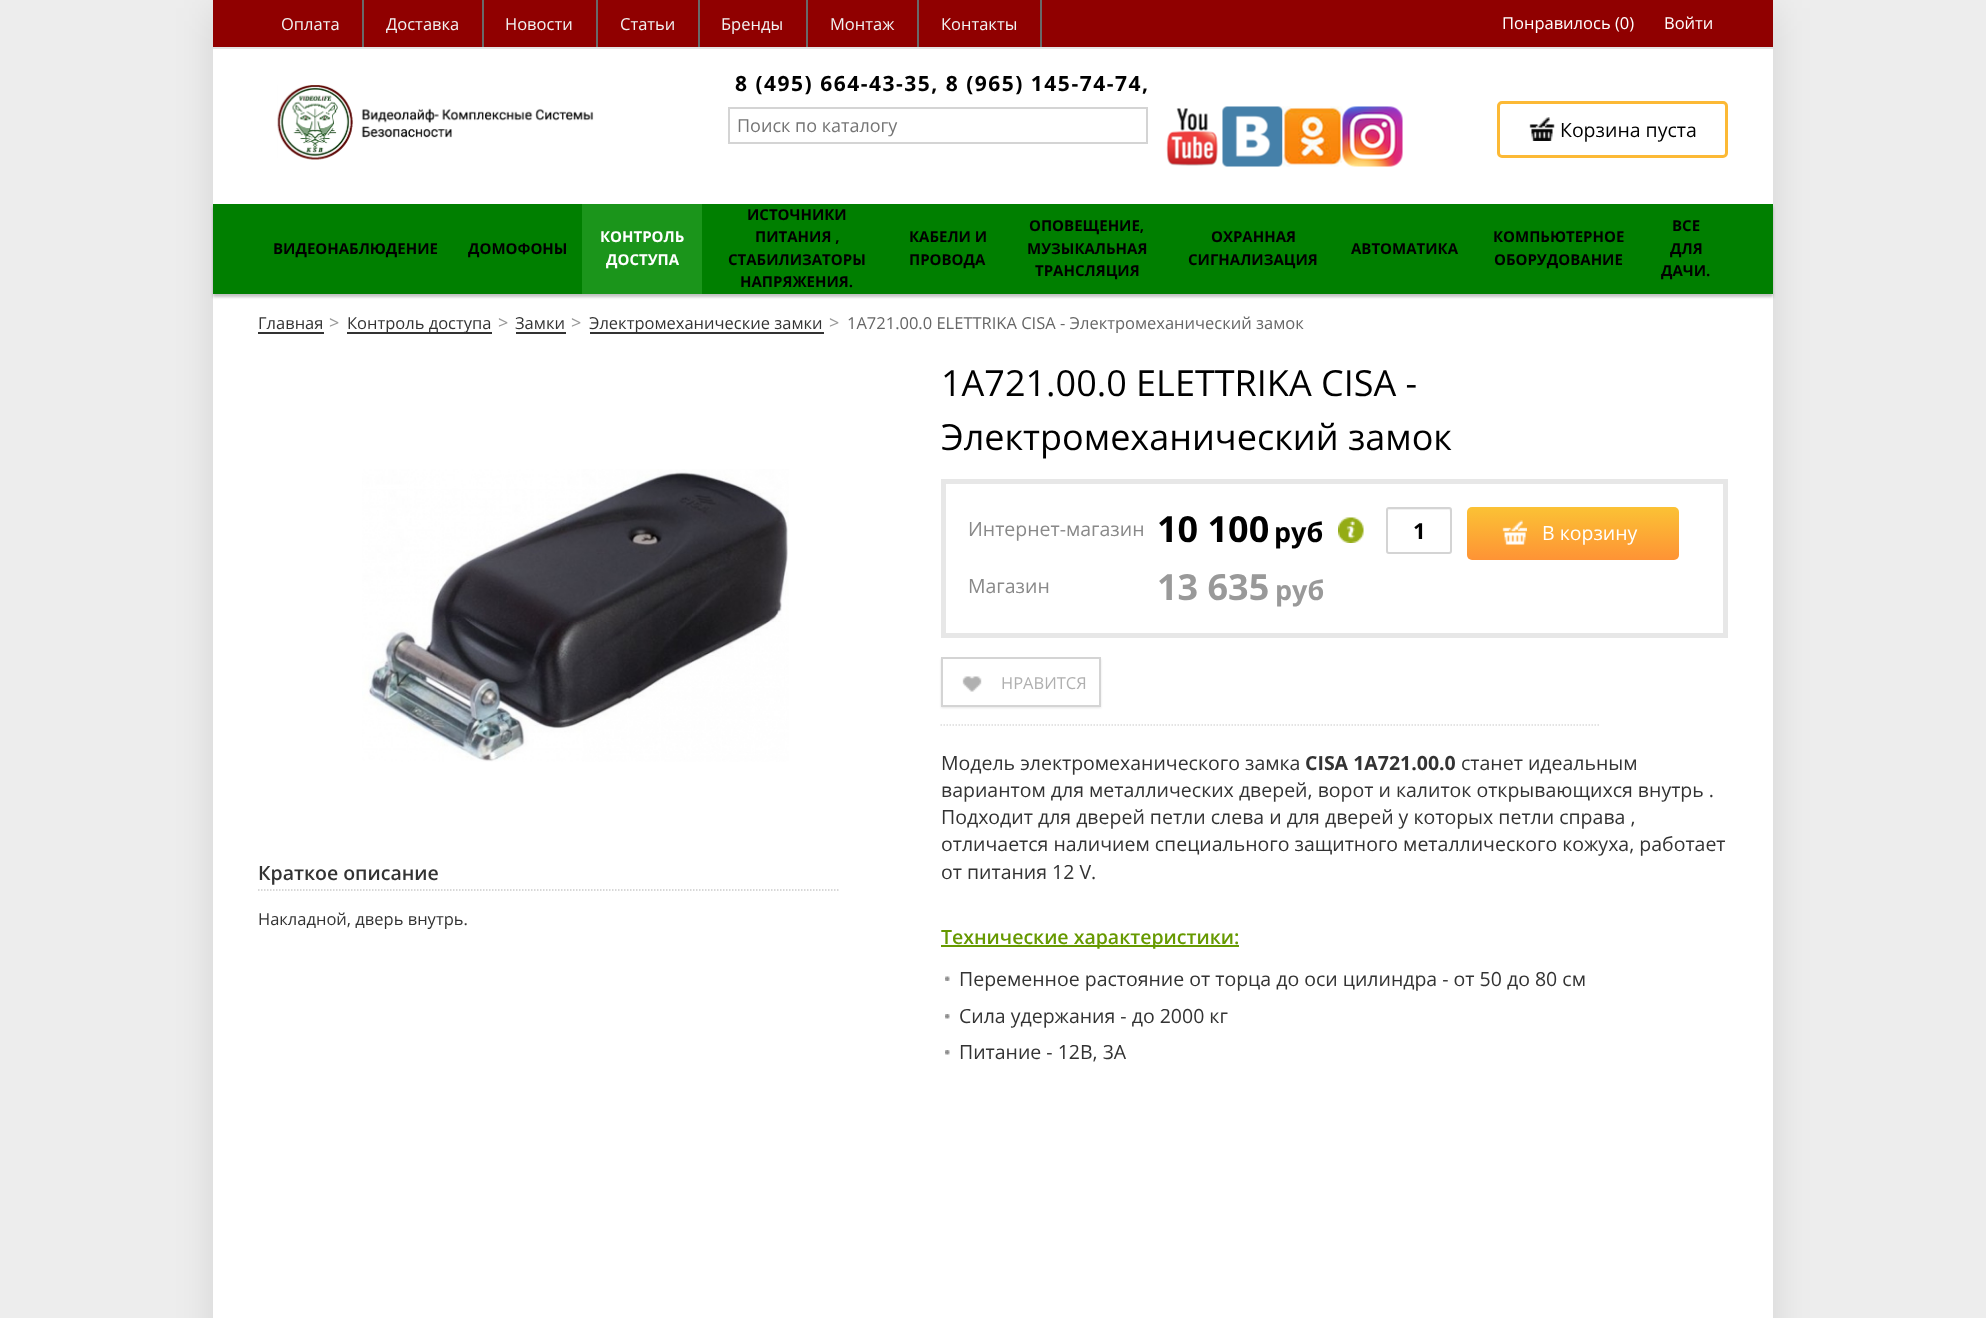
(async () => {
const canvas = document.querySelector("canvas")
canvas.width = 1986
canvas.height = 1318
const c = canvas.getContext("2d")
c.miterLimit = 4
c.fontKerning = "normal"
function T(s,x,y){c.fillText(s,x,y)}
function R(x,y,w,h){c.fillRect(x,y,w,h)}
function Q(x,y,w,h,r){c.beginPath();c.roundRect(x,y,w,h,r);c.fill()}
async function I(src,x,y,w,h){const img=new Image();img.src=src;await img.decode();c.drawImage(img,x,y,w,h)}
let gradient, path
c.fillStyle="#ededed"
R(0,0,1986,1318)
c.fillStyle="#0000001a"
c.filter="blur(19px)"
c.beginPath()
c.rect(213,8,1560,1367)
c.fill()
c.filter="none"
c.fillStyle="#fff"
R(213,49,1560,1269)
c.fillStyle="#900000"
R(213,0,1560,47)
c.fillStyle="#e4e4e4"
R(213,47,1560,2)
c.fillStyle="#696969"
R(362,0,2,47)
c.font="16.5px Open Sans"
c.fillStyle="#f2f2f2"
T("Оплата",281,30)
c.fillStyle="#696969"
R(482,0,2,47)
c.fillStyle="#f2f2f2"
T("Доставка",386,30)
c.fillStyle="#696969"
R(596,0,2,47)
c.fillStyle="#f2f2f2"
T("Новости",505,30)
c.fillStyle="#696969"
R(698,0,2,47)
c.fillStyle="#f2f2f2"
T("Статьи",620,30)
c.fillStyle="#696969"
R(806,0,2,47)
c.fillStyle="#f2f2f2"
T("Бренды",721,30)
c.fillStyle="#696969"
R(917,0,2,47)
c.fillStyle="#f2f2f2"
T("Монтаж",830,30)
c.fillStyle="#696969"
R(1040,0,2,47)
c.fillStyle="#f2f2f2"
T("Контакты",941,30)
c.fillStyle="#fff"
T("Понравилось (0)",1502,29)
T("Войти",1664,29)
await I("1.png",277,85,317,75)
c.letterSpacing="1.5px"
c.font="bold 21px Open Sans"
c.fillStyle="#000"
T("8 (495) 664-43-35, 8 (965) 145-74-74,",735,91)
c.strokeStyle="#d4d4d4"
c.lineWidth=2
c.strokeRect(729,108,418,35)
c.letterSpacing="0px"
c.font="18px Open Sans"
c.fillStyle="#757575"
T("Поиск по каталогу",737,132)
await I("2.png",1166,108,52,58)
await I("3.png",1222,106,61,61)
await I("4.png",1282,106,61,61)
await I("5.png",1342,106,61,61)
c.beginPath()
c.roundRect(1498.5,102.5,228,54,3.5)
c.strokeStyle="#fcb935"
c.lineWidth=3
c.stroke()
await I("6.png",1529,117,26,24)
c.font="19.5px Open Sans"
c.fillStyle="#000"
T("Корзина пуста",1560,137)
c.fillStyle="#3232324d"
c.filter="blur(1.5px)"
c.beginPath()
c.rect(213,207,1560,90)
c.fill()
c.filter="none"
c.fillStyle="#007f00"
R(213,204,1560,90)
c.font="bold 15px Open Sans"
c.fillStyle="#000"
T("ВИДЕОНАБЛЮДЕНИЕ",273,254)
T("ДОМОФОНЫ",468,254)
c.fillStyle="#1b951b"
R(582,204,120,90)
c.fillStyle="#fff"
T("КОНТРОЛЬ",600,242)
T("ДОСТУПА",606,265)
c.fillStyle="#000"
T("ИСТОЧНИКИ",747,220)
T("ПИТАНИЯ ,",755,242)
T("СТАБИЛИЗАТОРЫ",728,265)
T("НАПРЯЖЕНИЯ.",740,287)
T("КАБЕЛИ И",909,242)
T("ПРОВОДА",909,265)
T("ОПОВЕЩЕНИЕ,",1029,231)
T("МУЗЫКАЛЬНАЯ",1027,254)
T("ТРАНСЛЯЦИЯ",1035,276)
T("ОХРАННАЯ",1211,242)
T("СИГНАЛИЗАЦИЯ",1188,265)
T("АВТОМАТИКА",1351,254)
T("КОМПЬЮТЕРНОЕ",1493,242)
T("ОБОРУДОВАНИЕ",1494,265)
T("ВСЕ",1672,231)
T("ДЛЯ",1670,254)
T("ДАЧИ.",1661,276)
c.font="16.5px Open Sans"
c.fillStyle="#333"
T("Главная",258,329)
R(258,332,66,2)
c.font="18px Open Sans"
c.fillStyle="#999"
T(">",329,329)
c.fillStyle="#333"
R(347,332,145,2)
c.font="16.5px Open Sans"
T("Контроль доступа",347,329)
c.font="18px Open Sans"
c.fillStyle="#999"
T(">",498,329)
c.font="16.5px Open Sans"
c.fillStyle="#333"
T("Замки",515,329)
R(516,332,50,2)
c.font="18px Open Sans"
c.fillStyle="#999"
T(">",571,329)
c.fillStyle="#333"
R(590,332,234,2)
c.font="16.5px Open Sans"
T("Электромеханические замки",589,329)
c.font="18px Open Sans"
c.fillStyle="#999"
T(">",829,329)
c.font="16.5px Open Sans"
c.fillStyle="#666"
T("1A721.00.0 ELETTRIKA CISA - Электромеханический замок",847,329)
await I("7.png",362,469,427,293)
path = new Path2D("M258 890h580.5")
c.strokeStyle="#ccc"
c.lineWidth=1.5
c.setLineDash([1.5,1.5])
c.stroke(path)
c.font="600 19.5px Open Sans"
c.fillStyle="#333"
T("Краткое описание",258,880)
c.font="16.5px Open Sans"
T("Накладной, дверь внутрь.",258,925)
c.font="36px Open Sans"
c.fillStyle="#000"
T("1A721.00.0 ELETTRIKA CISA -",941,396)
T("Электромеханический замок",941,450)
c.strokeStyle="#e7e7e7"
c.lineWidth=5
c.setLineDash([])
c.strokeRect(943.5,481.5,782,154)
c.font="19.5px Open Sans"
c.fillStyle="#898989"
T("Интернет-магазин",968,536)
c.font="bold 36px Open Sans"
c.fillStyle="#000"
T("10 100",1157,542)
c.font="bold 27px Open Sans"
T("руб",1274,542)
await I("8.png",1338,517,26,26)
c.fillStyle="#f1f1f1"
path = new Path2D("M1389 510h58c3-1 3 1 3 5v37c2-1 1-25 1-28c0-17 4-15-11-15h-40c-1 0-12-3-12 2z")
c.fill(path)
c.beginPath()
c.roundRect(1387,508,64,45,2)
c.strokeStyle="#d4d4d4"
c.lineWidth=2
c.stroke()
c.font="bold 22px Open Sans"
c.fillStyle="#000"
T("1",1413,539)
gradient = c.createLinearGradient(1573,507,1573,560)
gradient.addColorStop(0,"#fbc235")
gradient.addColorStop(1,"#fe9335")
c.fillStyle = gradient
Q(1467,507,212,53,5)
await I("9.png",1502,520,25,25)
c.font="19.5px Open Sans"
c.fillStyle="#fff"
T("В корзину",1542,540)
c.fillStyle="#898989"
T("Магазин",968,593)
c.font="bold 36px Open Sans"
c.fillStyle="#999"
T("13 635",1157,600)
c.font="bold 27px Open Sans"
T("руб",1275,600)
path = new Path2D("M940.5 725h660")
c.strokeStyle="#dbdbdb"
c.lineWidth=1.5
c.setLineDash([1.5,1.5])
c.stroke(path)
c.save()
path = new Path2D("M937 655h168v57h-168zm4 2h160v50h-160z")
c.clip(path,"evenodd")
c.fillStyle="#0000001a"
c.filter="blur(1px)"
c.beginPath()
c.rect(941,659,160,49)
c.fill()
c.filter="none"
c.restore()
c.strokeStyle="#d4d4d4"
c.lineWidth=2
c.setLineDash([])
c.strokeRect(942,658,158,48)
await I("10.png",962,676,20,16)
c.font="16.5px Open Sans"
c.fillStyle="#b0b0b0"
T("НРАВИТСЯ",1001,689)
c.font="19.5px Open Sans"
c.fillStyle="#333"
T("Модель электромеханического замка",941,770)
c.font="bold 19.5px Open Sans"
T("CISA 1A721.00.0",1305,770)
c.font="19.5px Open Sans"
T("станет идеальным",1461,770)
T("вариантом для металлических дверей, ворот и калиток открывающихся внутрь .",941,797)
T("Подходит для дверей петли слева и для дверей у которых петли справа ,",941,824)
T("отличается наличием специального защитного металлического кожуха, работает",941,851)
T("от питания 12 V.",941,879)
c.fillStyle="#690"
R(941,945,298,2)
c.font="600 19.5px Open Sans"
T("Технические характеристики:",941,944)
await I("11.png",945,976,5,5)
c.font="19.5px Open Sans"
c.fillStyle="#333"
T("Переменное растояние от торца до оси цилиндра - от 50 до 80 см",959,986)
await I("12.png",945,1014,5,5)
T("Сила удержания - до 2000 кг",959,1023)
await I("12.png",945,1050,5,5)
T("Питание - 12В, 3А",959,1059)
})()
